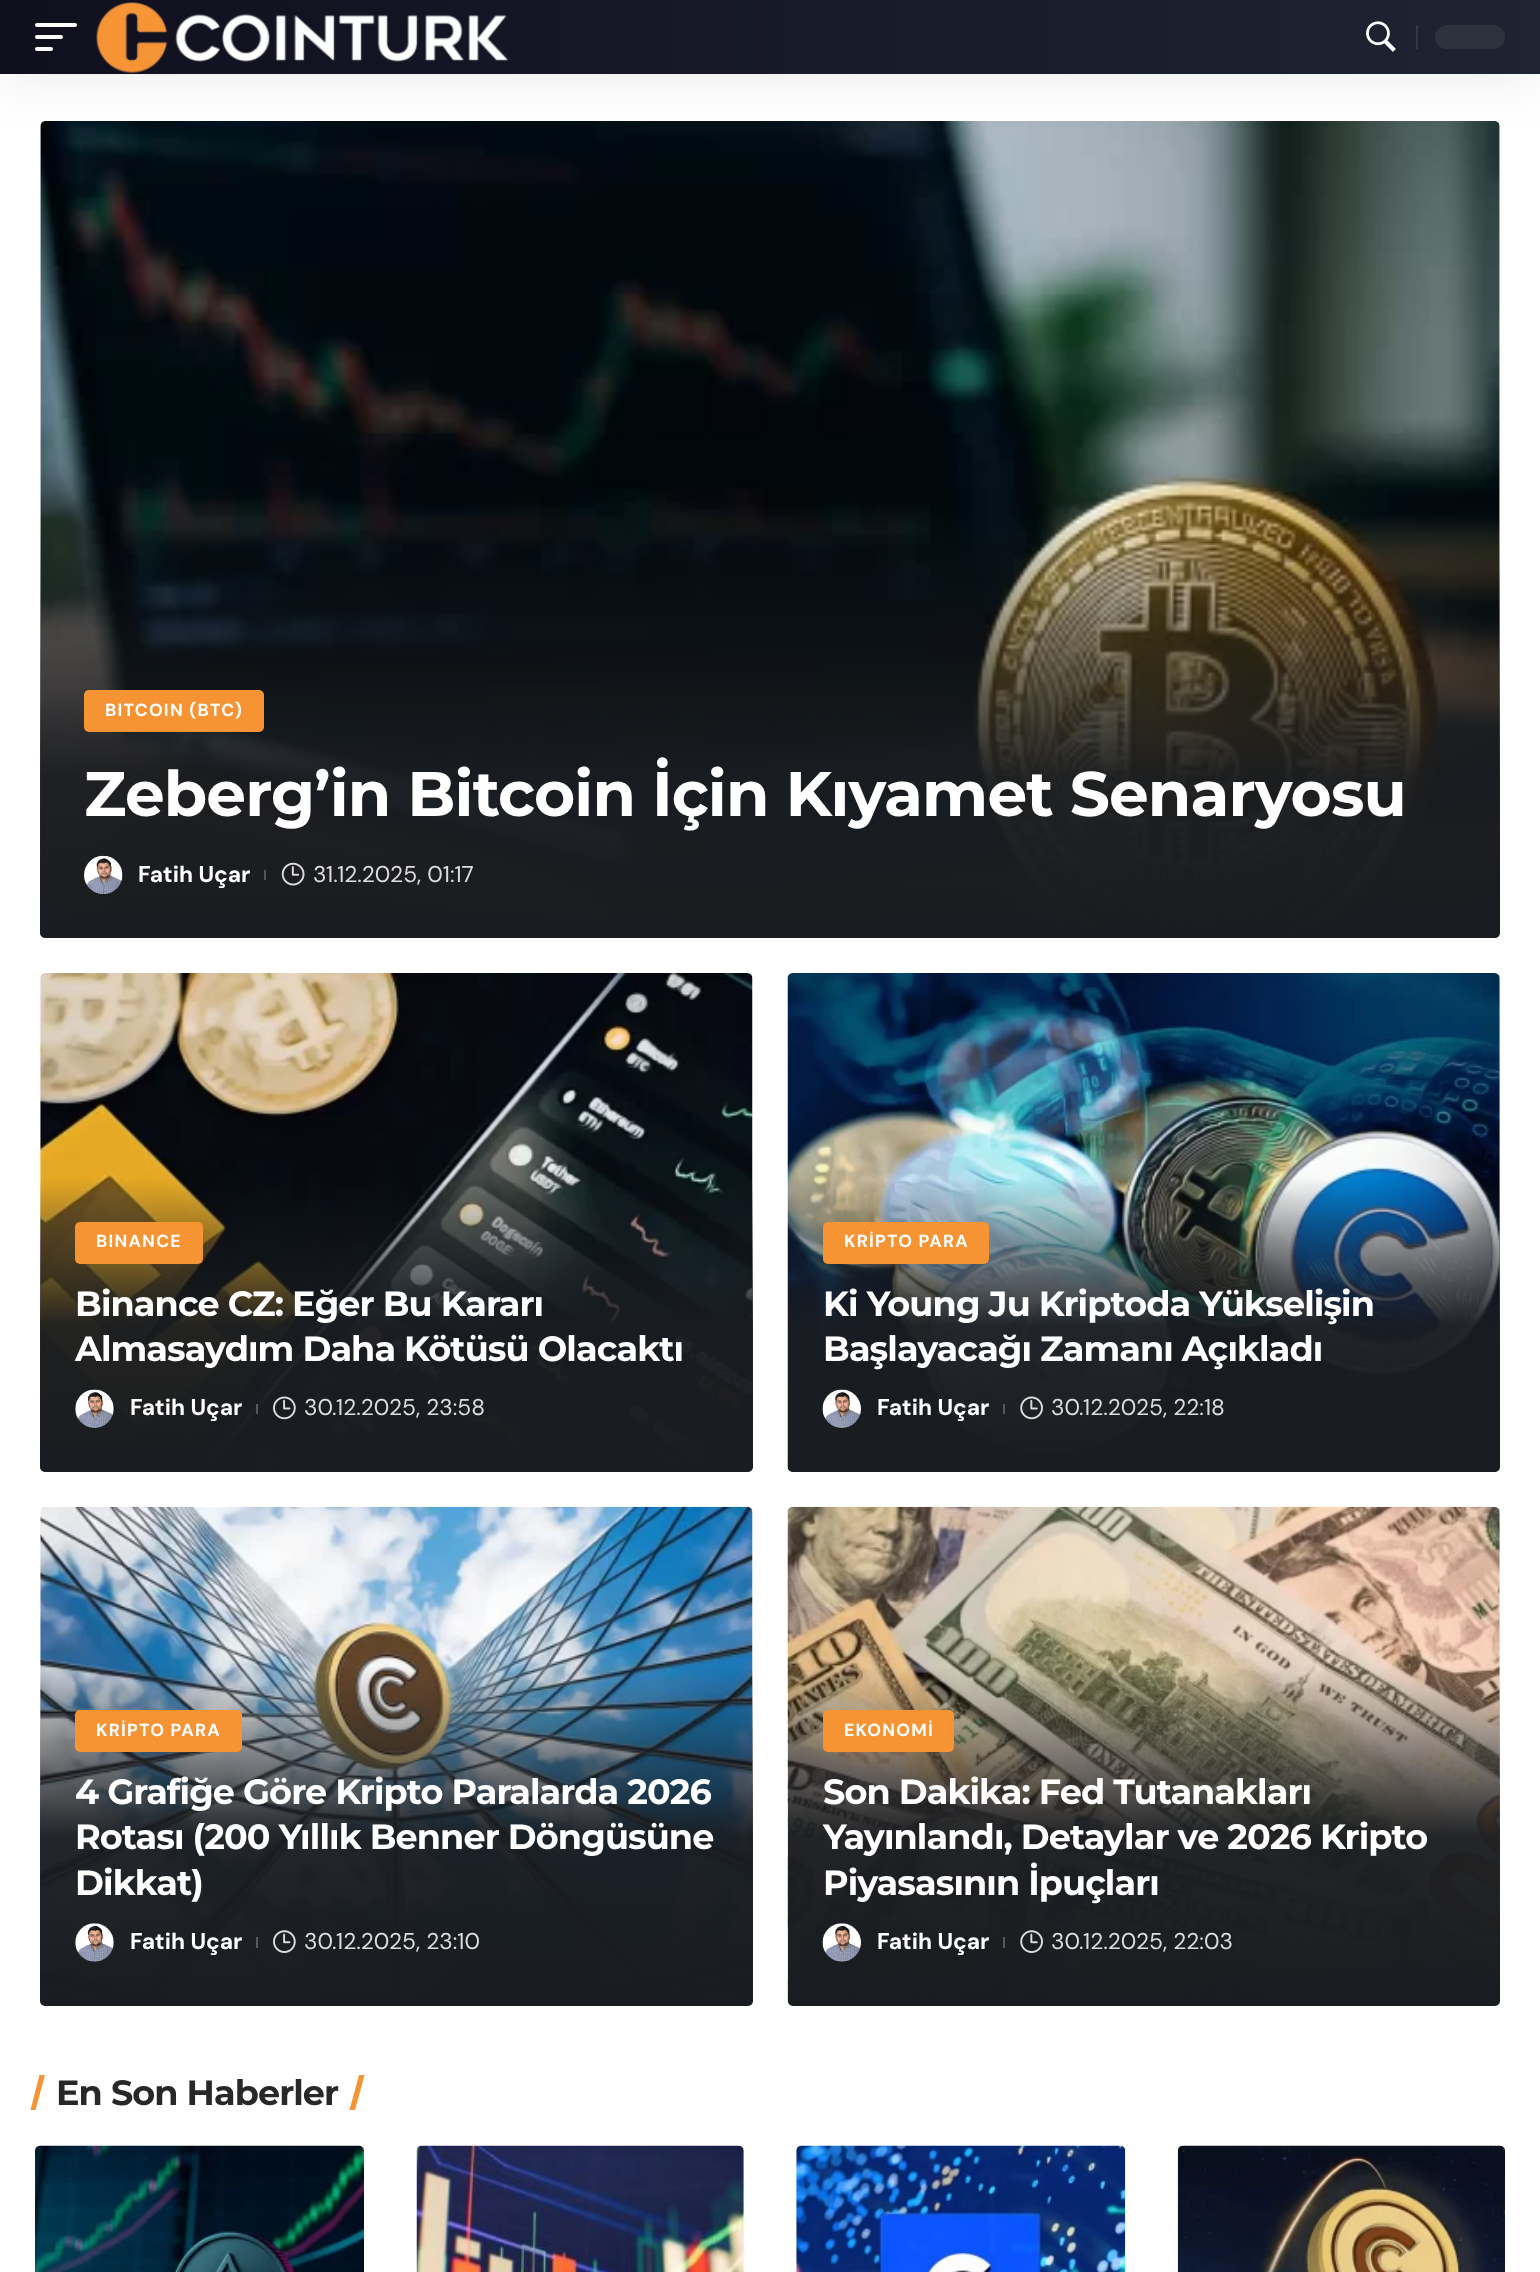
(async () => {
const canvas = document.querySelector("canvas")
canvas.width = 1540
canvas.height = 2272
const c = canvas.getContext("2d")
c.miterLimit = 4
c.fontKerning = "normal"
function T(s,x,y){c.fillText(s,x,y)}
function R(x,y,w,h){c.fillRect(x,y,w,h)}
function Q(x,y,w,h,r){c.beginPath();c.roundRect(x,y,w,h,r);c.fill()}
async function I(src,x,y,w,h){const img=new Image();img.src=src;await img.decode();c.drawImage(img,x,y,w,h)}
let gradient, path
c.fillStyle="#fff"
R(0,0,1540,2272)
await I("3.png",40,121,1460,817)
c.fillStyle="#00000012"
c.filter="blur(26px)"
c.beginPath()
c.rect(0,7,1540,74)
c.fill()
c.filter="none"
gradient = c.createLinearGradient(0,37,1540,37)
gradient.addColorStop(0,"#100f1e")
gradient.addColorStop(1,"#1e2432")
c.fillStyle = gradient
R(0,0,1540,74)
c.fillStyle="#fff"
Q(35,23,42,4,2)
Q(35,35,28,4,2)
Q(35,47,18,4,2)
await I("1.png",95,2,414,72)
await I("2.png",1366,21,30,31)
c.fillStyle="#343845"
R(1416,25,2,24)
c.fillStyle="#2d323e"
Q(1435,25,70,24,12)
gradient = c.createLinearGradient(770,938,770,515)
gradient.addColorStop(0,"#191c20")
gradient.addColorStop(.38,"#191c20f2")
gradient.addColorStop(1,"#191c2000")
c.fillStyle = gradient
c.beginPath()
c.roundRect(40,515,1460,423,[0,0,5,5])
c.fill()
c.fillStyle="#f69434"
Q(84,690,180,42,5)
c.letterSpacing="1.25px"
c.font="bold 17.5px DM Sans"
c.fillStyle="#fff"
T("BITCOIN (BTC)",105,716)
c.letterSpacing="-0.9px"
c.font="bold 63px Montserrat"
T("Zeberg’in Bitcoin İçin Kıyamet Senaryosu",84,816)
await I("4.png",84,855,39,40)
c.letterSpacing="0px"
c.font="bold 22.75px DM Sans"
T("Fatih Uçar",138,882)
c.fillStyle="#555658"
R(264,870,2,10)
await I("5.png",281,862,24,24)
c.font="22.75px DM Sans"
c.fillStyle="#ddd"
T("31.12.2025, 01:17",313,882)
await I("6.png",40,973,713,499)
gradient = c.createLinearGradient(396,1472,396,1178)
gradient.addColorStop(0,"#191c20")
gradient.addColorStop(.5,"#191c20f2")
gradient.addColorStop(1,"#191c2000")
c.fillStyle = gradient
c.beginPath()
c.roundRect(40,1178,713,294,[0,0,5,5])
c.fill()
c.fillStyle="#f69434"
Q(75,1222,128,42,5)
c.letterSpacing="1.25px"
c.font="bold 17.5px DM Sans"
c.fillStyle="#fff"
T("BINANCE",96,1247)
c.letterSpacing="-0.9px"
c.font="bold 35px Montserrat"
T("Binance CZ: Eğer Bu Kararı",75,1316)
T("Almasaydım Daha Kötüsü Olacaktı",75,1361)
await I("7.png",75,1389,39,39)
c.letterSpacing="0px"
c.font="bold 22.75px DM Sans"
T("Fatih Uçar",130,1415)
c.fillStyle="#dddddd4d"
R(256,1404,2,10)
await I("8.png",273,1396,23,24)
c.font="22.75px DM Sans"
c.fillStyle="#ddd"
T("30.12.2025, 23:58",304,1415)
await I("9.png",40,1506,713,500)
gradient = c.createLinearGradient(396,2006,396,1666)
gradient.addColorStop(0,"#191c20")
gradient.addColorStop(.5,"#191c20f2")
gradient.addColorStop(1,"#191c2000")
c.fillStyle = gradient
c.beginPath()
c.roundRect(40,1666,713,340,[0,0,5,5])
c.fill()
c.fillStyle="#f69434"
Q(75,1710,167,42,5)
c.letterSpacing="1.25px"
c.font="bold 17.5px DM Sans"
c.fillStyle="#fff"
T("KRİPTO PARA",96,1736)
c.letterSpacing="-0.9px"
c.font="bold 35px Montserrat"
T("4 Grafiğe Göre Kripto Paralarda 2026",75,1804)
T("Rotası (200 Yıllık Benner Döngüsüne",75,1849)
T("Dikkat)",75,1895)
await I("10.png",75,1923,39,39)
c.letterSpacing="0px"
c.font="bold 22.75px DM Sans"
T("Fatih Uçar",130,1949)
c.fillStyle="#56585a"
R(256,1937,2,11)
await I("11.png",273,1930,23,23)
c.font="22.75px DM Sans"
c.fillStyle="#ddd"
T("30.12.2025, 23:10",304,1949)
await I("12.png",787,973,713,499)
gradient = c.createLinearGradient(1144,1472,1144,1178)
gradient.addColorStop(0,"#191c20")
gradient.addColorStop(.5,"#191c20f2")
gradient.addColorStop(1,"#191c2000")
c.fillStyle = gradient
c.beginPath()
c.roundRect(788,1178,712,294,[0,0,5,5])
c.fill()
c.fillStyle="#f69434"
Q(823,1222,166,42,5)
c.letterSpacing="1.25px"
c.font="bold 17.5px DM Sans"
c.fillStyle="#fff"
T("KRİPTO PARA",844,1247)
c.letterSpacing="-0.9px"
c.font="bold 35px Montserrat"
T("Ki Young Ju Kriptoda Yükselişin",823,1316)
T("Başlayacağı Zamanı Açıkladı",823,1361)
await I("13.png",822,1389,39,39)
c.letterSpacing="0px"
c.font="bold 22.75px DM Sans"
T("Fatih Uçar",877,1415)
c.fillStyle="#56595c"
R(1003,1404,2,10)
await I("14.png",1020,1396,23,24)
c.font="22.75px DM Sans"
c.fillStyle="#ddd"
T("30.12.2025, 22:18",1051,1415)
await I("15.png",787,1506,713,500)
gradient = c.createLinearGradient(1144,2006,1144,1666)
gradient.addColorStop(0,"#191c20")
gradient.addColorStop(.5,"#191c20f2")
gradient.addColorStop(1,"#191c2000")
c.fillStyle = gradient
c.beginPath()
c.roundRect(788,1666,712,340,[0,0,5,5])
c.fill()
c.fillStyle="#f69434"
Q(823,1710,131,42,5)
c.letterSpacing="1.25px"
c.font="bold 17.5px DM Sans"
c.fillStyle="#fff"
T("EKONOMİ",844,1736)
c.letterSpacing="-0.9px"
c.font="bold 35px Montserrat"
T("Son Dakika: Fed Tutanakları",823,1804)
T("Yayınlandı, Detaylar ve 2026 Kripto",823,1849)
T("Piyasasının İpuçları",823,1895)
await I("16.png",822,1923,39,39)
c.letterSpacing="0px"
c.font="bold 22.75px DM Sans"
T("Fatih Uçar",877,1949)
c.fillStyle="#555759"
R(1003,1937,2,11)
await I("17.png",1020,1930,23,23)
c.font="22.75px DM Sans"
c.fillStyle="#ddd"
T("30.12.2025, 22:03",1051,1949)
c.fillStyle="#f69434"
path = new Path2D("M359 2075h5.5l-9.5 35h-5.5z")
c.fill(path)
path = new Path2D("M39.5 2075h5.5l-9.5 35h-5z")
c.fill(path)
c.letterSpacing="-0.9px"
c.font="bold 35px Montserrat"
c.fillStyle="#282828"
T("En Son Haberler",56,2105)
await I("18.png",35,2145,329,127)
await I("19.png",416,2145,328,127)
await I("20.png",796,2145,330,127)
await I("21.png",1177,2145,328,127)
})()
